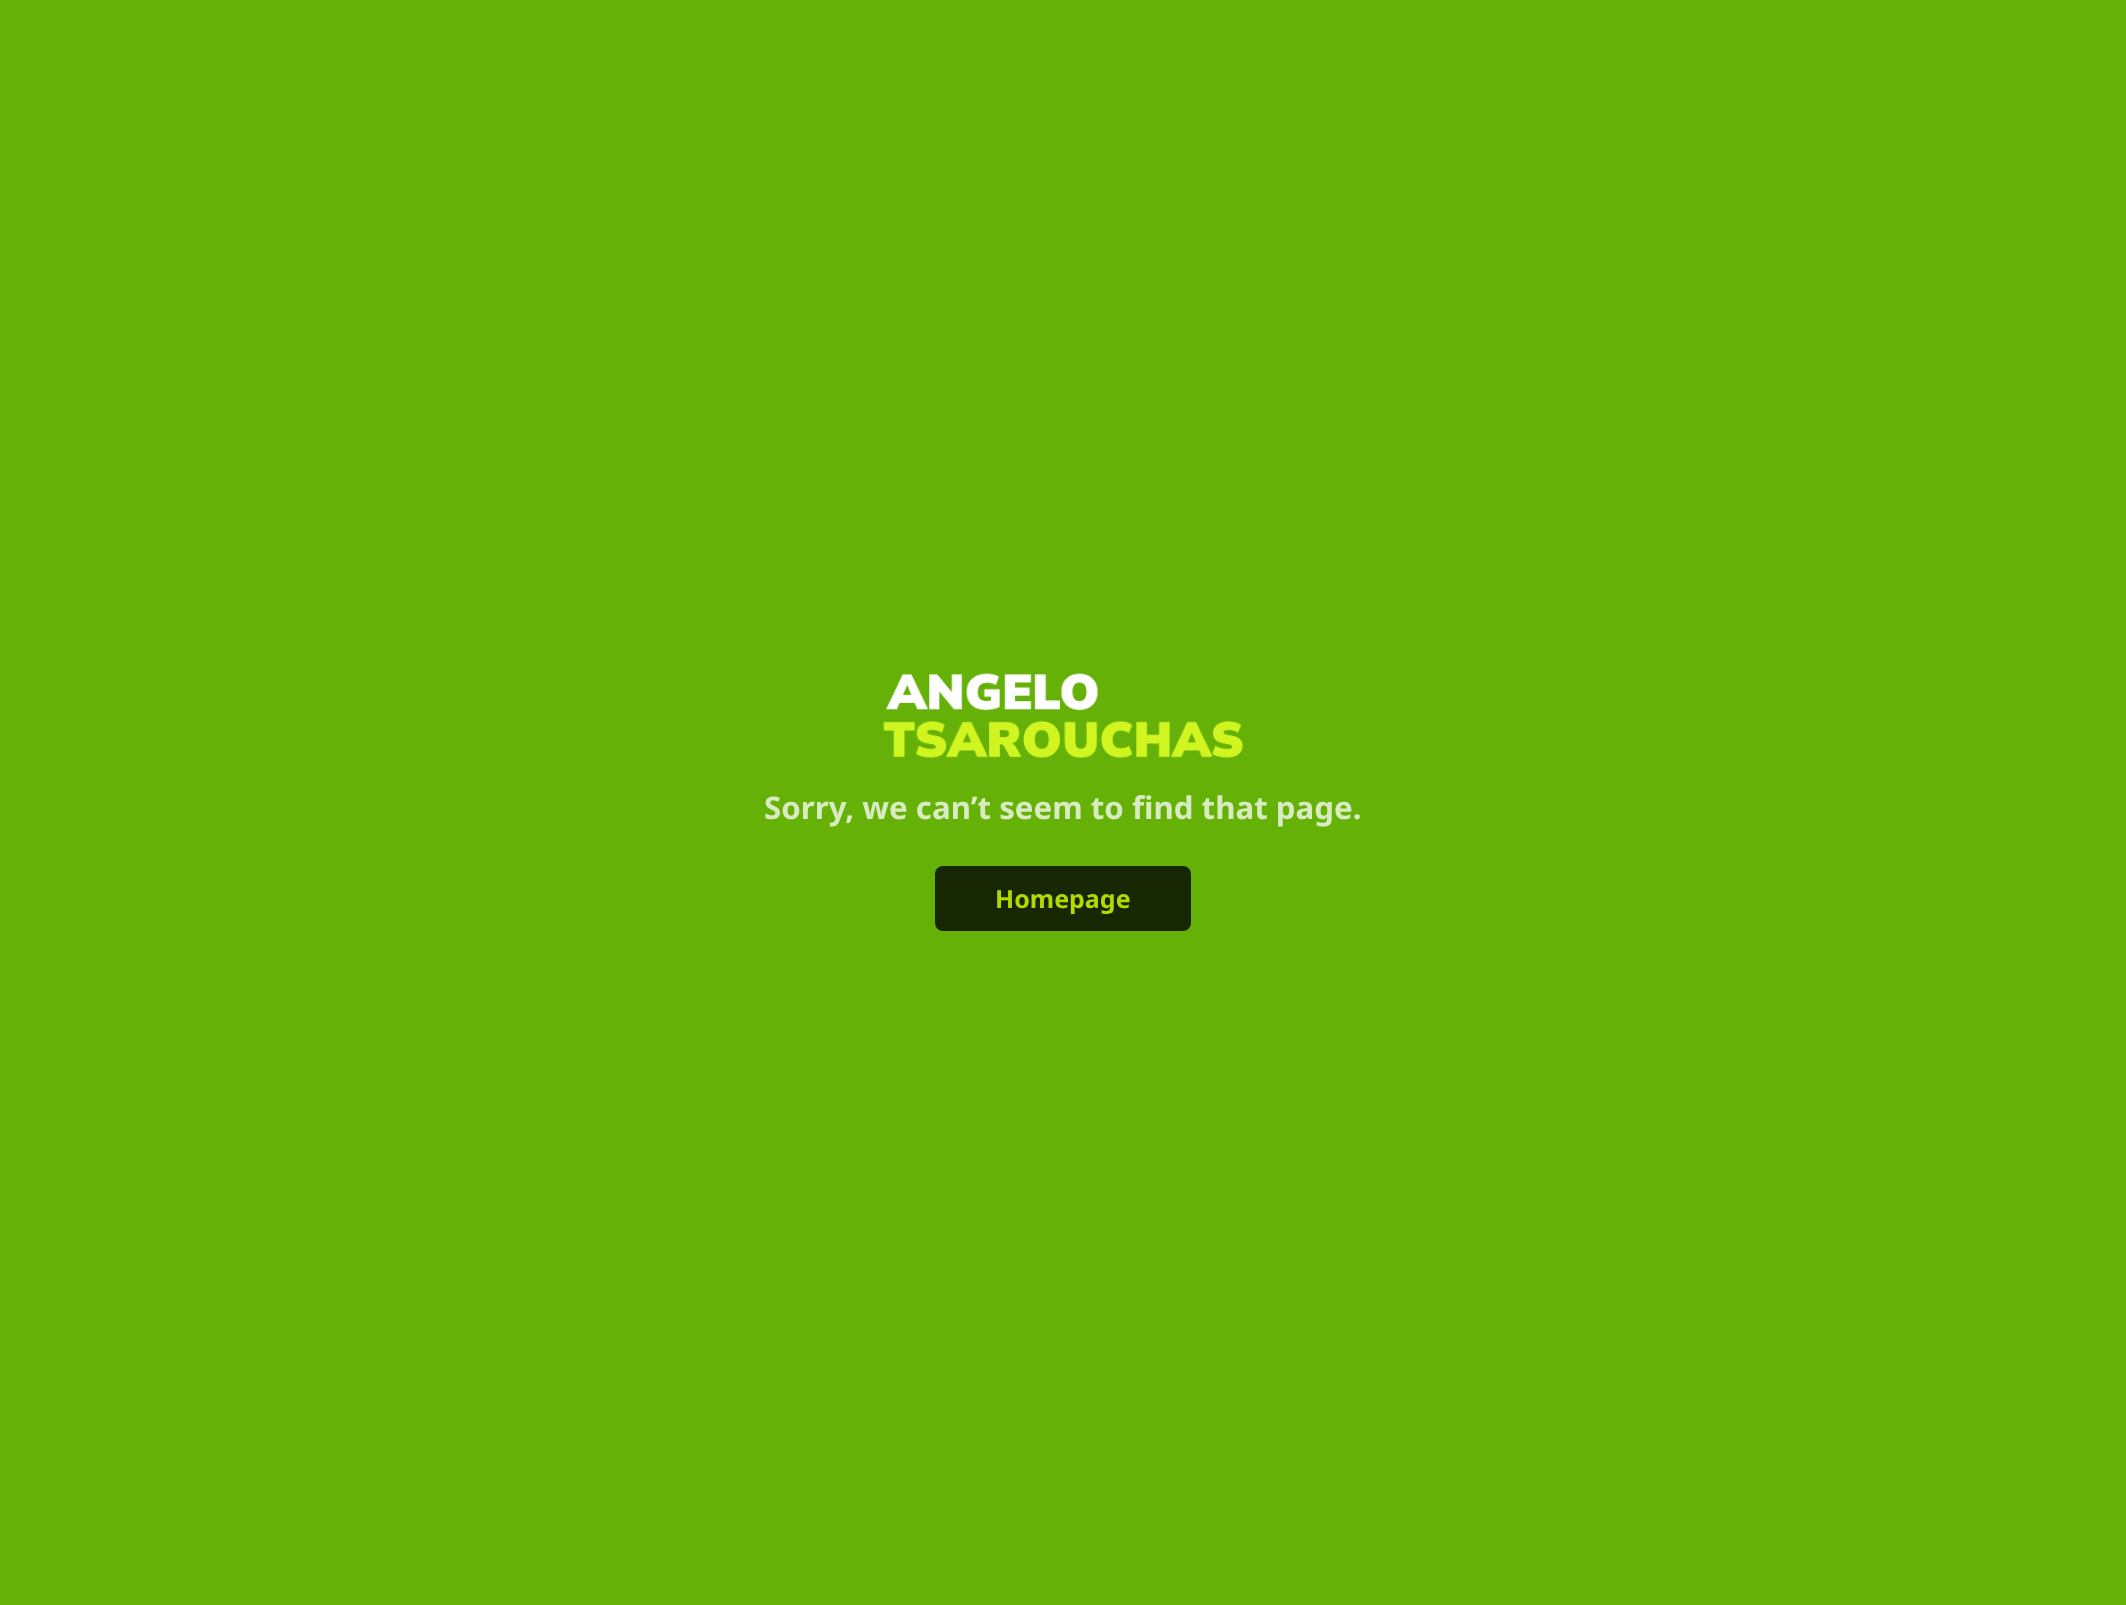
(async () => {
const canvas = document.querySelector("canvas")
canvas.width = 2126
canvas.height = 1605
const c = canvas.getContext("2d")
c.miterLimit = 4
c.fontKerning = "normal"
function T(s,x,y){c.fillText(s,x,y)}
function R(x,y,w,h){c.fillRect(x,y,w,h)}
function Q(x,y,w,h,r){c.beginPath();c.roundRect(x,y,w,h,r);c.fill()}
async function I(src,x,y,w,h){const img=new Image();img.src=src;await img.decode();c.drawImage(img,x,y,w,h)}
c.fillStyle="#66b107"
R(0,0,2126,1605)
await I("1.png",883,673,360,85)
c.font="bold 31.25px Noto Sans"
c.fillStyle="#d9ecc1"
T("Sorry, we can’t seem to find that page.",764,819)
c.fillStyle="#162701"
Q(935,866,256,65,8)
c.font="bold 25px Noto Sans"
c.fillStyle="#b5d900"
T("Homepage",995,908)
})()
